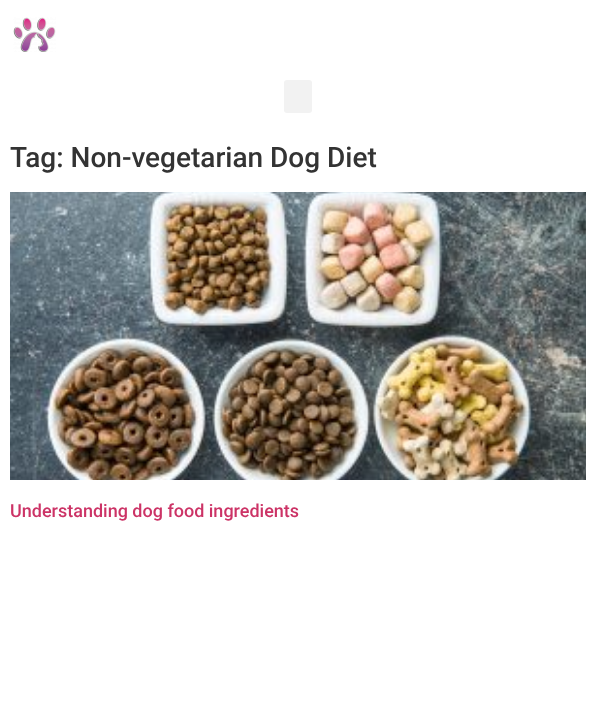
(async () => {
const canvas = document.querySelector("canvas")
canvas.width = 596
canvas.height = 723
const c = canvas.getContext("2d")
c.miterLimit = 4
c.fontKerning = "normal"
function T(s,x,y){c.fillText(s,x,y)}
function R(x,y,w,h){c.fillRect(x,y,w,h)}
function Q(x,y,w,h,r){c.beginPath();c.roundRect(x,y,w,h,r);c.fill()}
async function I(src,x,y,w,h){const img=new Image();img.src=src;await img.decode();c.drawImage(img,x,y,w,h)}
c.fillStyle="#fff"
R(0,0,596,723)
await I("1.png",13,17,43,35)
c.fillStyle="#f2f2f2"
Q(284,80,28,33,3)
c.font="500 28px Roboto"
c.fillStyle="#333"
T("Tag: Non-vegetarian Dog Diet",10,167)
await I("2.png",10,192,576,288)
c.font="500 18px Roboto"
c.fillStyle="#c36"
T("Understanding dog food ingredients",10,517)
})()
